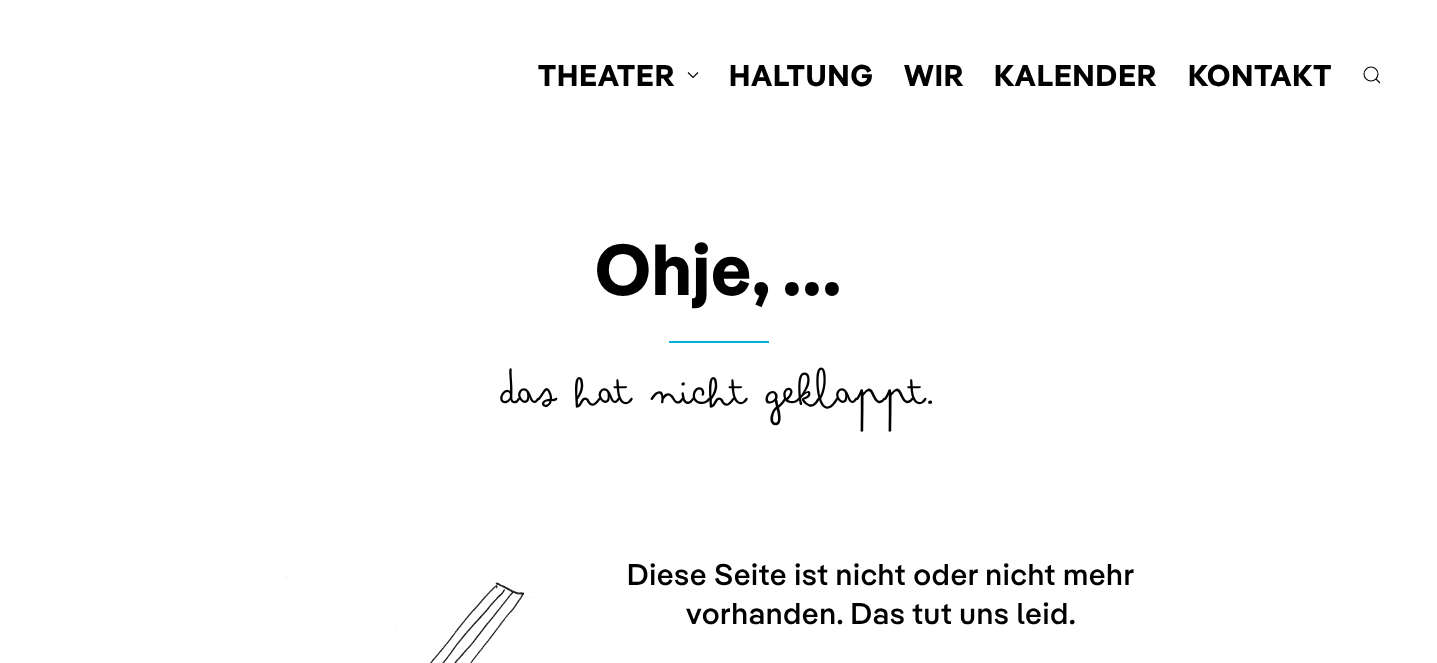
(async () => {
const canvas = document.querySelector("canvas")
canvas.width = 1437
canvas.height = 663
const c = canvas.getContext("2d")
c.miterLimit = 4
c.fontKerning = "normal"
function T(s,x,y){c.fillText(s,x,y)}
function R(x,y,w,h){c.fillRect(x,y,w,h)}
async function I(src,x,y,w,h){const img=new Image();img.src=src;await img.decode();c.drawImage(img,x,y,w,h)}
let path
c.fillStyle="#fff"
R(0,0,1437,663)
c.letterSpacing="1px"
c.font="bold 30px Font"
c.fillStyle="#000"
T("THEATER",538,86)
path = new Path2D("M688 72.5l5 5l5-5")
c.strokeStyle="#000"
c.lineWidth=1.1
c.stroke(path)
T("HALTUNG",729,86)
T("WIR",904,86)
T("KALENDER",994,86)
T("KONTAKT",1188,86)
c.beginPath()
c.arc(1371,74,7,0,7)
c.stroke()
path = new Path2D("M1376 79l4 4z")
c.stroke(path)
c.font="bold 72px Font"
T("Ohje, …",595,295)
c.fillStyle="#00b3d8"
R(669,341,100,2)
c.letterSpacing="1.05px"
c.font="45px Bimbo"
c.fillStyle="#000"
T("das hat nicht geklappt.",501,404)
await I("1.png",285,577,274,86)
c.font="500 30px Font"
T("Diese Seite ist nicht oder nicht mehr",627,585)
T("vorhanden. Das tut uns leid.",686,624)
})()
